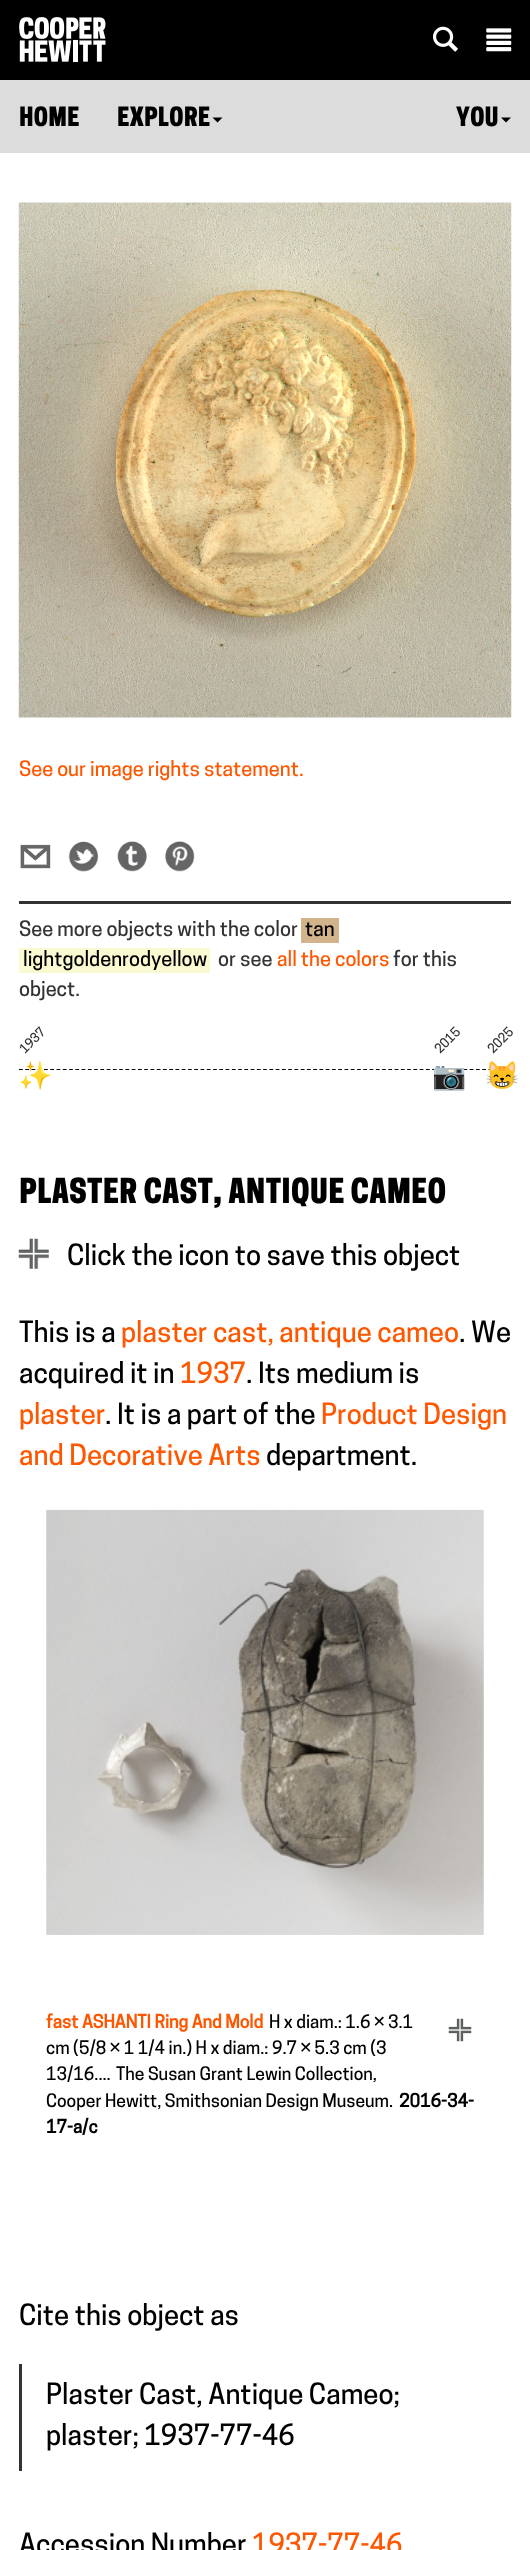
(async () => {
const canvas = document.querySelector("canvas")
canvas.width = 530
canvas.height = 2550
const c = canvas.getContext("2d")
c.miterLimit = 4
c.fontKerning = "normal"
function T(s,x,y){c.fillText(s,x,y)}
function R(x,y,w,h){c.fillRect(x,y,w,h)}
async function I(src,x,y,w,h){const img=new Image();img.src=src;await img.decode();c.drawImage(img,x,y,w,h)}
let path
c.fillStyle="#fff"
R(0,0,530,2550)
c.fillStyle="#000"
R(0,0,530,80)
await I("1.png",19,17,87,45)
await I("2.png",433,26,25,26)
await I("3.png",486,28,26,24)
c.fillStyle="#dcdcdc"
R(0,80,530,73)
c.font="600 25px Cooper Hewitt"
c.fillStyle="#000"
T("HOME",19,126)
T("EXPLORE",117,126)
path = new Path2D("M212.5 117.5h10l-5 5z")
c.fill(path)
T("YOU",456,126)
path = new Path2D("M501 117.5h10l-5 5z")
c.fill(path)
await I("4.png",18,202,494,516)
c.font="500 20px Cooper Hewitt"
c.fillStyle="#ff5700"
T("See our image rights statement.",19,776)
await I("5.png",20,844,31,25)
await I("6.png",68,841,31,31)
await I("7.png",117,841,30,31)
await I("8.png",165,841,30,31)
c.fillStyle="#333"
R(19,901,492,3)
T("See more objects with the color",19,936)
c.fillStyle="#d2b48c"
R(301,918,38,25)
c.fillStyle="#000"
T("tan",305,936)
c.fillStyle="#fafad2"
R(19,948,191,25)
c.fillStyle="#000"
T("lightgoldenrodyellow",23,966)
c.fillStyle="#333"
T("or see",218,966)
c.fillStyle="#ff5700"
T("all the colors",277,966)
c.fillStyle="#333"
T("for this",393,966)
T("object.",19,996)
path = new Path2D("M19 1069.5h492")
c.strokeStyle="#000"
c.lineWidth=1.2
c.setLineDash([3.75,2.51])
c.stroke(path)
c.font="500 12.5px Cooper Hewitt"
c.save()
c.translate(25,1054)
c.rotate(-45 * Math.PI / 180)
c.fillText("1937",0,0)
c.restore()
c.save()
c.translate(440,1054)
c.rotate(-45 * Math.PI / 180)
c.fillText("2015",0,0)
c.restore()
c.save()
c.translate(493,1054)
c.rotate(-45 * Math.PI / 180)
c.fillText("2025",0,0)
c.restore()
c.font="27.5px Noto Color Emoji"
c.fillStyle="#000"
T("✨",18,1085)
c.fillStyle="#ff5700"
T("📷",432,1085)
c.fillStyle="#000"
T("😸",485,1085)
c.font="600 32.5px Cooper Hewitt"
T("PLASTER CAST, ANTIQUE CAMEO",19,1203)
await I("9.png",18,1238,31,31)
c.font="500 27.5px Cooper Hewitt"
T("Click the icon to save this object",67,1265)
T("This is a",19,1342)
c.fillStyle="#ff5700"
T("plaster cast, antique cameo",121,1342)
c.fillStyle="#000"
T(". We",459,1342)
T("acquired it in",19,1383)
c.fillStyle="#ff5700"
T("1937",180,1383)
c.fillStyle="#000"
T(". Its medium is",246,1383)
c.fillStyle="#ff5700"
T("plaster",19,1424)
c.fillStyle="#000"
T(". It is a part of the",105,1424)
c.fillStyle="#ff5700"
T("Product Design",321,1424)
T("and Decorative Arts",19,1465)
c.fillStyle="#000"
T("department.",266,1465)
await I("10.png",46,1509,438,426)
c.font="bold 17.5px Cooper Hewitt"
c.fillStyle="#ff5700"
T("fast ASHANTI Ring And Mold",46,2028)
c.font="500 17.5px Cooper Hewitt"
c.fillStyle="#000"
T("H x diam.: 1.6 × 3.1",269,2028)
T("cm (5/8 × 1 1/4 in.) H x diam.: 9.7 × 5.3 cm (3",46,2054)
T("13/16....",46,2080)
T("The Susan Grant Lewin Collection,",116,2080)
T("Cooper Hewitt, Smithsonian Design Museum.",46,2107)
c.font="bold 17.5px Cooper Hewitt"
T("2016-34-",399,2107)
T("17-a/c",46,2133)
await I("11.png",448,2018,24,24)
c.font="500 27.5px Cooper Hewitt"
T("Cite this object as",19,2325)
c.fillStyle="#333"
R(19,2364,3,107)
c.fillStyle="#000"
T("Plaster Cast, Antique Cameo;",46,2404)
T("plaster; 1937-77-46",46,2445)
T("Accession Number",19,2554)
c.fillStyle="#ff5700"
T("1937-77-46",252,2554)
})()
